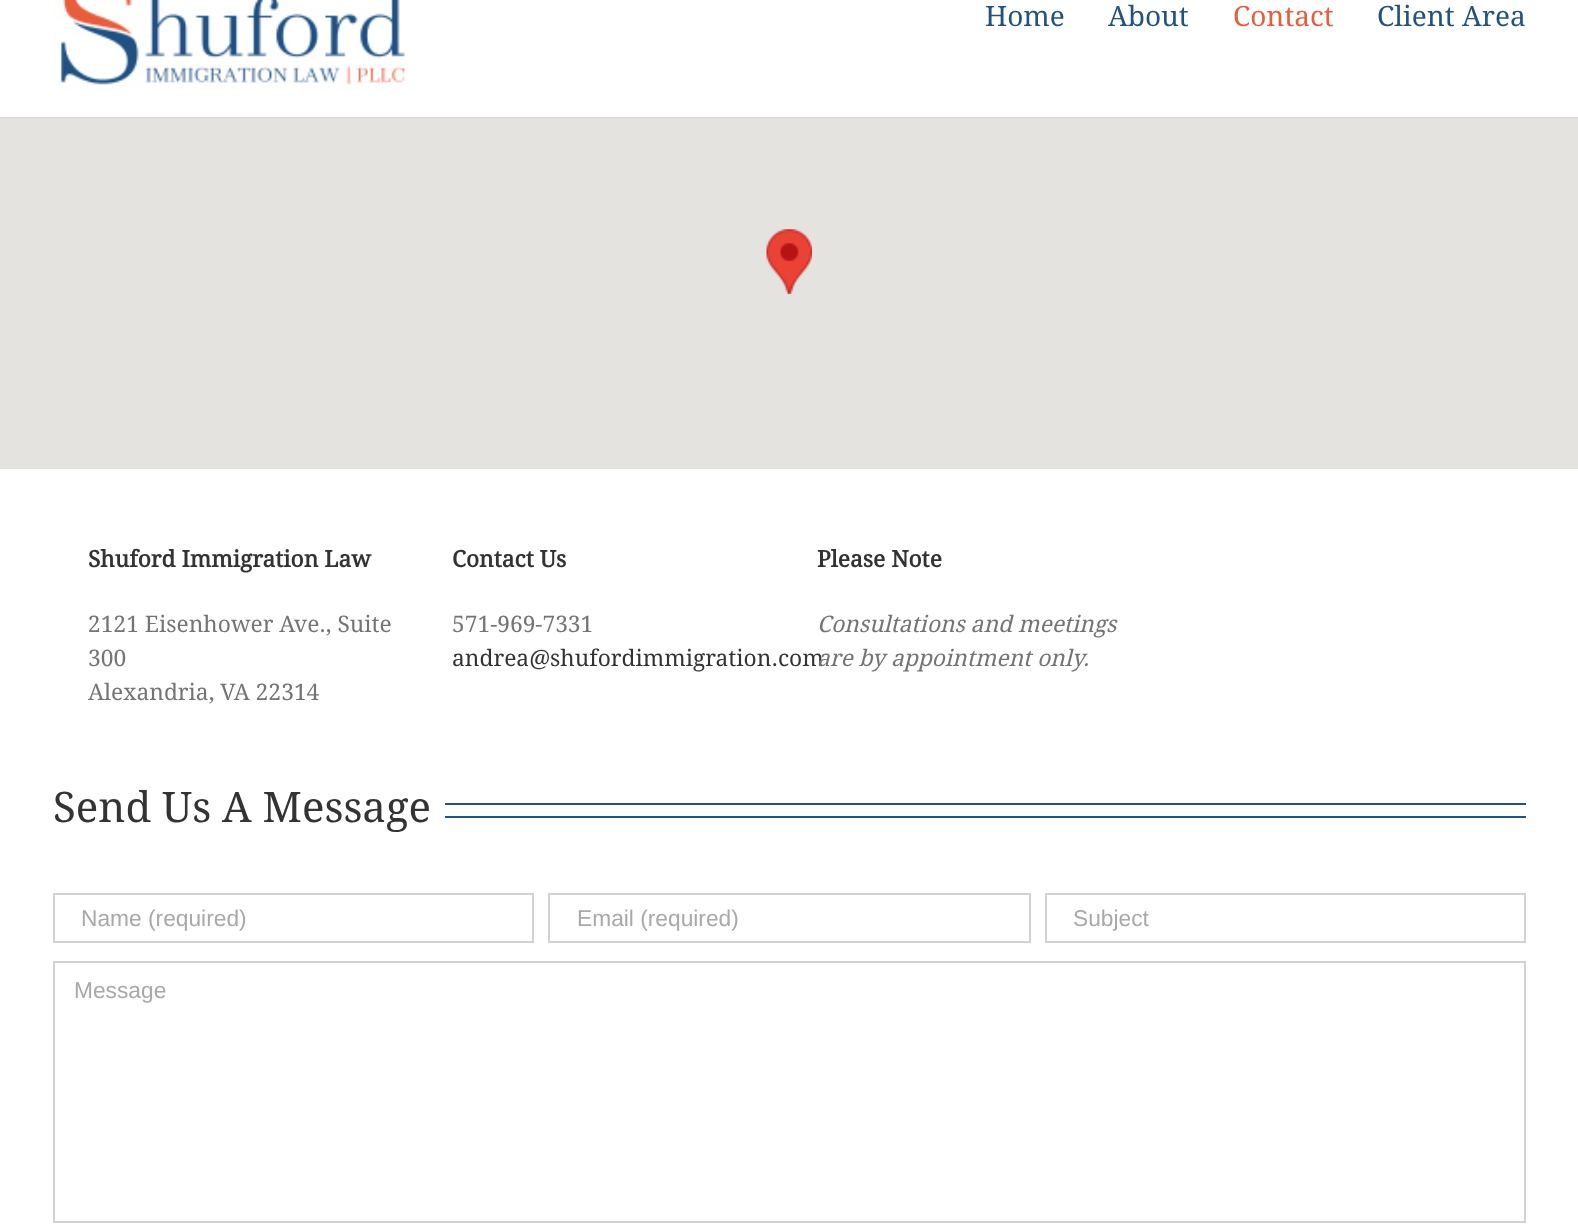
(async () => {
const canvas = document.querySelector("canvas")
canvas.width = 1578
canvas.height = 1224
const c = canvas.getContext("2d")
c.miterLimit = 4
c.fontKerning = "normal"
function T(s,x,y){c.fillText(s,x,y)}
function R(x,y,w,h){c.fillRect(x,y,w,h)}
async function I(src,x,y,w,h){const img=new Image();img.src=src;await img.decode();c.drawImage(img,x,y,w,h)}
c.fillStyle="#fff"
R(0,0,1578,1224)
c.fillStyle="#dbdbdb"
R(0,117,1578,2)
await I("1.png",53,0,352,91)
c.font="28px Droid Serif"
c.fillStyle="#225280"
T("Home",985,26)
T("About",1108,26)
c.fillStyle="#e75e3c"
T("Contact",1233,26)
c.fillStyle="#225280"
T("Client Area",1377,26)
c.fillStyle="#e5e3df"
R(0,119,1578,350)
await I("2.png",766,229,46,65)
c.font="bold 22.75px Droid Serif"
c.fillStyle="#333"
T("Shuford Immigration Law",88,567)
c.font="22.75px Droid Serif"
c.fillStyle="#747474"
T("2121 Eisenhower Ave., Suite",88,632)
T("300",88,666)
T("Alexandria, VA 22314",88,700)
c.font="bold 22.75px Droid Serif"
c.fillStyle="#333"
T("Contact Us",452,567)
c.font="22.75px Droid Serif"
c.fillStyle="#747474"
T("571-969-7331",452,632)
c.fillStyle="#333"
T("andrea@shufordimmigration.com",452,666)
c.font="bold 22.75px Droid Serif"
T("Please Note",817,567)
c.font="italic 22.75px Droid Serif"
c.fillStyle="#747474"
T("Consultations and meetings",817,632)
T("are by appointment only.",817,666)
c.font="42px Droid Serif"
c.fillStyle="#333"
T("Send Us A Message",53,822)
c.fillStyle="#225280"
R(445,803,1081,2)
R(445,816,1081,2)
c.strokeStyle="#d2d2d2"
c.lineWidth=2
c.strokeRect(54,894,479,48)
c.font="22.75px Liberation Sans"
c.fillStyle="#aaa9a9"
T("Name (required)",81,926)
c.strokeRect(549,894,481,48)
T("Email (required)",577,926)
c.strokeRect(1046,894,479,48)
T("Subject",1073,926)
c.strokeRect(54,962,1471,260)
T("Message",74,998)
})()
